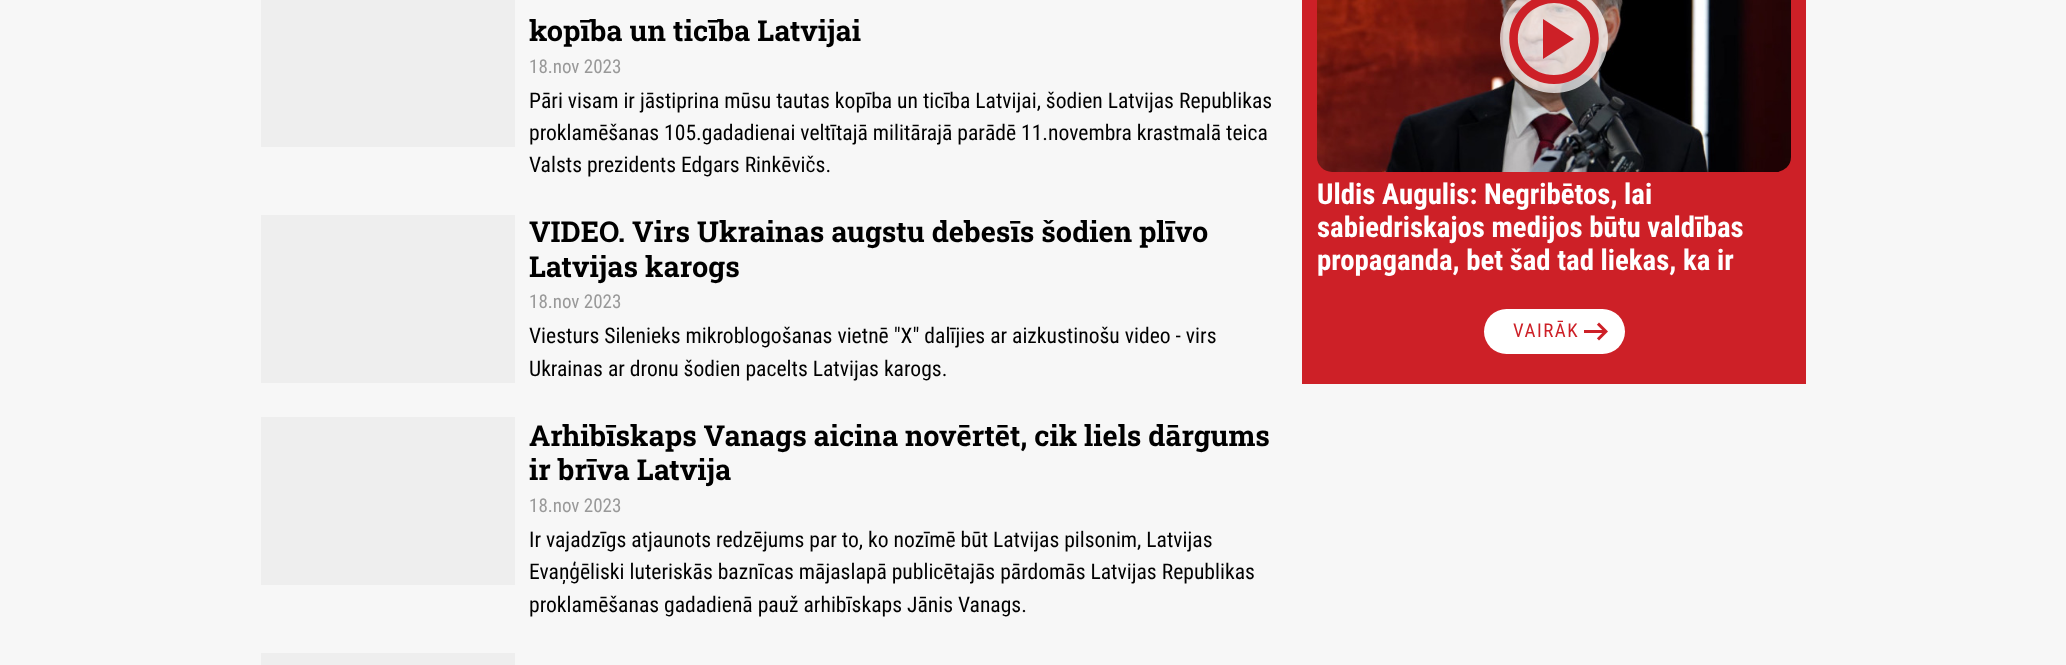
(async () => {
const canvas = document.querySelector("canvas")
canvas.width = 2066
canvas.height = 665
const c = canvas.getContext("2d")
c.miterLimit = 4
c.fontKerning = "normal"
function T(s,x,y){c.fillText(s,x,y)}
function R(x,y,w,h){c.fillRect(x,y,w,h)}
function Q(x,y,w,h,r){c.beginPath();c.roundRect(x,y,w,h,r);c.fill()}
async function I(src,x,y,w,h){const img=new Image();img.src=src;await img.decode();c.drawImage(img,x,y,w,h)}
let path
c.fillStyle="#f7f7f7"
R(0,0,2066,665)
c.fillStyle="#eee"
R(261,0,254,147)
c.font="bold 28.8px Roboto Slab"
c.fillStyle="#000"
T("kopība un ticība Latvijai",529,41)
c.font="19px Roboto Condensed"
c.fillStyle="#999"
T("18.nov 2023",529,73)
c.font="21.6px Roboto Condensed"
c.fillStyle="#000"
T("Pāri visam ir jāstiprina mūsu tautas kopība un ticība Latvijai, šodien Latvijas Republikas",529,108)
T("proklamēšanas 105.gadadienai veltītajā militārajā parādē 11.novembra krastmalā teica",529,140)
T("Valsts prezidents Edgars Rinkēvičs.",529,172)
c.fillStyle="#eee"
R(261,215,254,168)
c.font="bold 28.8px Roboto Slab"
c.fillStyle="#000"
T("VIDEO. Virs Ukrainas augstu debesīs šodien plīvo",529,242)
T("Latvijas karogs",529,277)
c.font="19px Roboto Condensed"
c.fillStyle="#999"
T("18.nov 2023",529,308)
c.font="21.6px Roboto Condensed"
c.fillStyle="#000"
T("Viesturs Silenieks mikroblogošanas vietnē \"X\" dalījies ar aizkustinošu video - virs",529,343)
T("Ukrainas ar dronu šodien pacelts Latvijas karogs.",529,376)
c.fillStyle="#eee"
R(261,417,254,168)
c.wordSpacing="-0.25px"
c.font="bold 28.8px Roboto Slab"
c.fillStyle="#000"
T("Arhibīskaps Vanags aicina novērtēt, cik liels dārgums",529,446)
c.wordSpacing="0px"
T("ir brīva Latvija",529,480)
c.font="19px Roboto Condensed"
c.fillStyle="#999"
T("18.nov 2023",529,512)
c.font="21.6px Roboto Condensed"
c.fillStyle="#000"
T("Ir vajadzīgs atjaunots redzējums par to, ko nozīmē būt Latvijas pilsonim, Latvijas",529,547)
T("Evaņģēliski luteriskās baznīcas mājaslapā publicētajās pārdomās Latvijas Republikas",529,579)
T("proklamēšanas gadadienā pauž arhibīskaps Jānis Vanags.",529,612)
c.fillStyle="#eee"
R(261,653,254,12)
c.fillStyle="#cd2027"
R(1302,0,504,384)
await I("1.png",1317,0,474,172)
c.fillStyle="#ffffffb3"
c.beginPath()
c.arc(1554,39,54,0,7)
c.fill()
c.fillStyle="#cd2027"
path = new Path2D("M1543 59l31-20l-31-20zm11 25c-43 0-61-55-27-81c8-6 17-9 27-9c10 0 19 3 27 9c34 26 16 81-27 81zm0-9c34 0 49-42 23-64c-7-5-15-8-23-8c-8 0-16 3-23 8c-26 22-11 64 23 64zm0-36z")
c.fill(path)
c.font="bold 28.8px Roboto Condensed"
c.fillStyle="#fff"
T("Uldis Augulis: Negribētos, lai",1317,204)
T("sabiedriskajos medijos būtu valdības",1317,237)
T("propaganda, bet šad tad liekas, ka ir",1317,270)
Q(1484,309,141,45,22.5)
c.letterSpacing="1.5px"
c.font="19px Roboto Condensed"
c.fillStyle="#cd2027"
T("VAIRĀK",1513,337)
await I("2.png",1584,322,24,19)
})()
